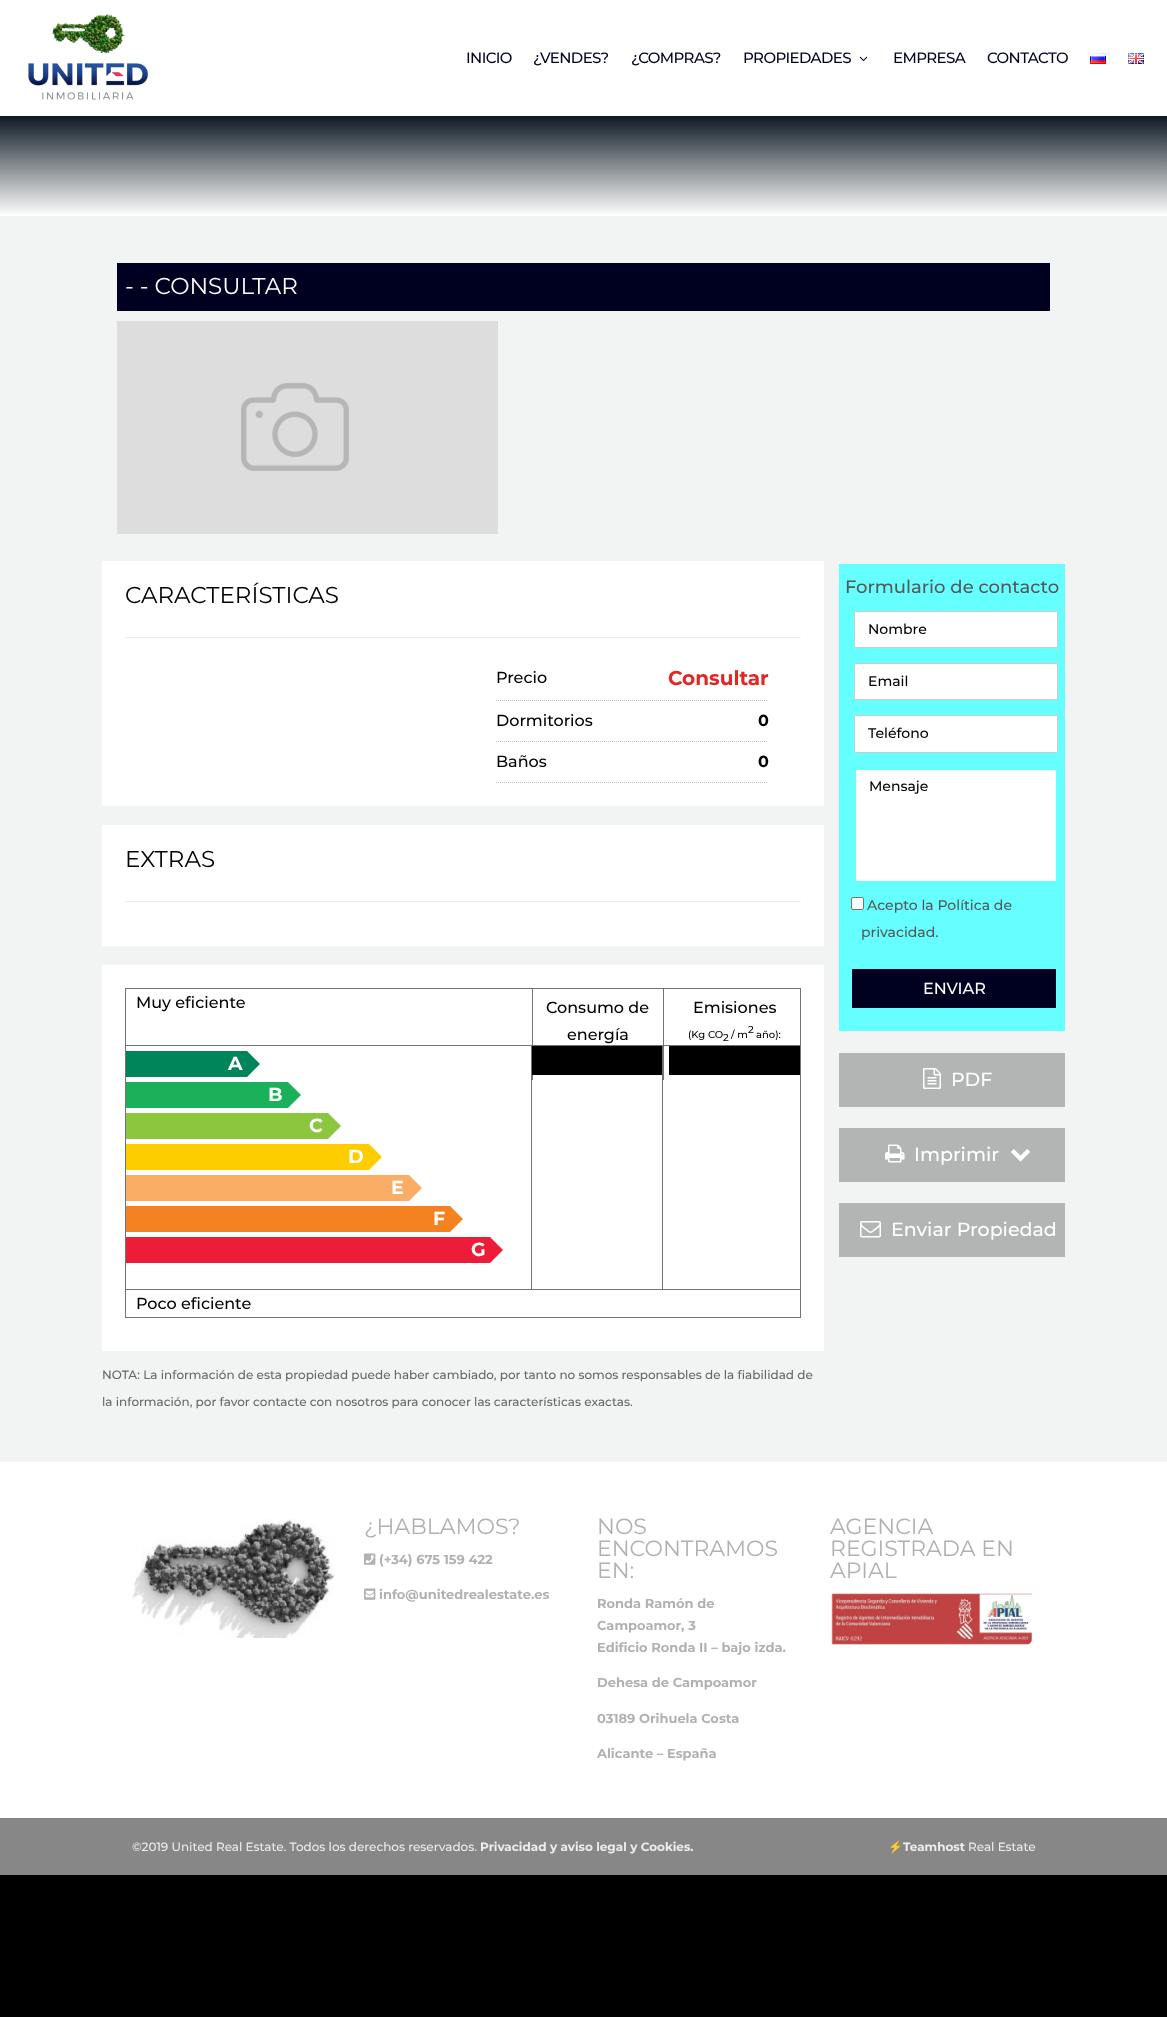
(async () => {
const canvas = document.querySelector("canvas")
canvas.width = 1167
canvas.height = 2017
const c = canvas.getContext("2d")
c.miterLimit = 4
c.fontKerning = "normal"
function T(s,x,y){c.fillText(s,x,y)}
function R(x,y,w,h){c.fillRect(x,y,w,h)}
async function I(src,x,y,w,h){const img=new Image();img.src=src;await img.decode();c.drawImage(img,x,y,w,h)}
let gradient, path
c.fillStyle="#000"
R(0,0,1167,2017)
c.fillStyle="#fff"
R(0,0,1167,116)
await I("1.png",28,14,120,86)
c.letterSpacing="-0.6px"
c.font="500 15px Montserrat"
c.fillStyle="#000020"
T("INICIO",466,63)
T("¿VENDES?",533,63)
T("¿COMPRAS?",631,63)
T("PROPIEDADES",743,63)
await I("2.png",859,56,9,5)
T("EMPRESA",893,63)
T("CONTACTO",987,63)
await I("3.png",1090,53,16,11)
await I("4.png",1128,53,16,11)
gradient = c.createLinearGradient(584,116,584,216)
gradient.addColorStop(0,"#0d1923")
gradient.addColorStop(1,"#fff")
c.fillStyle = gradient
R(0,116,1167,100)
c.fillStyle="#f2f3f3"
R(0,216,1167,1246)
c.fillStyle="#000020"
R(117,263,933,48)
c.letterSpacing="0px"
c.font="23px Montserrat"
c.fillStyle="#fff"
T("- - CONSULTAR",125,294)
await I("5.png",117,321,381,213)
R(102,561,722,245)
c.fillStyle="#000"
T("CARACTERÍSTICAS",125,603)
c.fillStyle="#eee"
R(125,637,676,1)
path = new Path2D("M496 700.5h272")
c.strokeStyle="#c2c0c0"
c.setLineDash([1,1])
c.stroke(path)
c.font="500 16px Montserrat"
c.fillStyle="#000"
T("Precio",496,683)
c.font="bold 20px Montserrat"
c.fillStyle="#e12726"
T("Consultar",668,685)
path = new Path2D("M496 741.5h272")
c.stroke(path)
c.font="500 16px Montserrat"
c.fillStyle="#000"
T("Dormitorios",496,726)
c.font="bold 16px Montserrat"
T("0",758,726)
path = new Path2D("M496 782.5h272")
c.stroke(path)
c.font="500 16px Montserrat"
T("Baños",496,767)
c.font="bold 16px Montserrat"
T("0",758,767)
c.fillStyle="#fff"
R(102,825,722,121)
c.font="23px Montserrat"
c.fillStyle="#000"
T("EXTRAS",125,867)
c.fillStyle="#eee"
R(125,901,676,1)
c.fillStyle="#fff"
R(102,965,722,386)
c.fillStyle="#737373"
R(125,988,676,1)
R(800,988,1,57)
R(125,988,1,57)
c.font="500 16px Montserrat"
c.fillStyle="#000"
T("Muy eficiente",136,1008)
c.fillStyle="#737373"
R(663,989,1,91)
R(532,989,1,91)
c.fillStyle="#000"
T("Consumo de",546,1013)
T("energía",567,1040)
T("Emisiones",693,1013)
c.font="500 10px Montserrat"
T("(Kg CO",688,1038)
T("2",723,1041)
T("/ m",731,1038)
T("2",748,1033)
T("año):",756,1038)
c.fillStyle="#737373"
R(125,1045,406,1)
R(125,1289,406,1)
R(125,1045,1,245)
c.fillStyle="#00855a"
R(126,1051,121,26)
c.font="bold 19px Montserrat"
c.fillStyle="#fff"
T("A",228,1070)
c.fillStyle="#00855a"
path = new Path2D("M247 1077v-26l13 13z")
c.fill(path)
c.fillStyle="#1bb15a"
R(126,1082,162,26)
c.fillStyle="#fff"
T("B",268,1101)
c.fillStyle="#1bb15a"
path = new Path2D("M288 1108v-26l13 13z")
c.fill(path)
c.fillStyle="#8cc63f"
R(126,1113,202,26)
c.fillStyle="#fff"
T("C",309,1132)
c.fillStyle="#8cc63f"
path = new Path2D("M328 1139v-26l13 13z")
c.fill(path)
c.fillStyle="#fecd00"
R(126,1144,243,26)
c.fillStyle="#fff"
T("D",348,1163)
c.fillStyle="#fecd00"
path = new Path2D("M369 1170v-26l13 13z")
c.fill(path)
c.fillStyle="#faae65"
R(126,1175,283,26)
c.fillStyle="#fff"
T("E",391,1194)
c.fillStyle="#faae65"
path = new Path2D("M409 1201v-26l13 13z")
c.fill(path)
c.fillStyle="#f58220"
R(126,1206,324,26)
c.fillStyle="#fff"
T("F",433,1225)
c.fillStyle="#f58220"
path = new Path2D("M450 1232v-26l13 13z")
c.fill(path)
c.fillStyle="#ed1c38"
R(126,1237,364,26)
c.fillStyle="#fff"
T("G",471,1256)
c.fillStyle="#ed1c38"
path = new Path2D("M490 1263v-26l13 13z")
c.fill(path)
c.strokeStyle="#737373"
c.setLineDash([])
c.strokeRect(531.5,1045.5,269,244)
c.fillStyle="#737373"
R(662,1046,1,243)
c.fillStyle="#000"
R(532,1046,130,29)
R(669,1046,131,29)
c.fillStyle="#737373"
R(800,1290,1,28)
R(125,1317,676,1)
R(125,1290,1,28)
c.font="500 16px Montserrat"
c.fillStyle="#000"
T("Poco eficiente",136,1309)
c.fillStyle="#6ff"
R(839,564,226,467)
c.font="500 18px Montserrat"
c.fillStyle="#585757"
T("Formulario de contacto",845,593)
c.fillStyle="#fff"
c.beginPath()
c.rect(854.5,611.5,203,36)
c.fill()
c.strokeStyle="#ccc"
c.stroke()
c.font="500 14px Montserrat"
c.fillStyle="#000"
T("Nombre",868,634)
c.fillStyle="#fff"
c.beginPath()
c.rect(854.5,663.5,203,36)
c.fill()
c.stroke()
c.fillStyle="#000"
T("Email",868,686)
c.fillStyle="#fff"
c.beginPath()
c.rect(854.5,715.5,203,37)
c.fill()
c.stroke()
c.fillStyle="#000"
T("Teléfono",868,738)
c.fillStyle="#fff"
R(856,770,200,111)
c.fillStyle="#000"
T("Mensaje",869,791)
c.fillStyle="#fff"
c.beginPath()
c.roundRect(851.5,897.5,12,12,1.5)
c.fill()
c.strokeStyle="#767676"
c.stroke()
c.fillStyle="#585757"
T("Acepto la Política de",867,910)
T("privacidad.",861,937)
c.fillStyle="#000020"
R(852,969,204,39)
c.font="500 16px Montserrat"
c.fillStyle="#fff"
T("ENVIAR",923,994)
c.fillStyle="#b3b4b4"
R(839,1053,226,54)
await I("6.png",923,1068,18,21)
c.font="500 19px Montserrat"
c.fillStyle="#fff"
T("PDF",951,1086)
c.fillStyle="#b3b4b4"
R(839,1128,226,54)
await I("7.png",885,1144,20,19)
c.fillStyle="#fff"
T("Imprimir",914,1161)
await I("8.png",1011,1149,19,13)
c.fillStyle="#b3b4b4"
R(839,1203,226,54)
await I("9.png",860,1221,21,17)
c.fillStyle="#fff"
T("Enviar Propiedad",891,1236)
c.font="500 12px Montserrat"
c.fillStyle="#666"
T("NOTA: La información de esta propiedad puede haber cambiado, por tanto no somos responsables de la fiabilidad de",102,1379)
T("la información, por favor contacte con nosotros para conocer las características exactas.",102,1406)
c.fillStyle="#fff"
R(0,1462,1167,356)
await I("10.png",132,1519,203,119)
c.font="22px Montserrat"
c.fillStyle="#b1b1b1"
T("¿HABLAMOS?",364,1534)
await I("11.png",364,1553,12,12)
c.font="bold 13px Montserrat"
T("(+34) 675 159 422",379,1564)
await I("12.png",364,1588,12,12)
T("info@unitedrealestate.es",379,1599)
c.font="22px Montserrat"
T("NOS",597,1534)
T("ENCONTRAMOS",597,1556)
T("EN:",597,1578)
c.font="bold 13px Montserrat"
T("Ronda Ramón de",597,1608)
T("Campoamor, 3",597,1630)
T("Edificio Ronda II – bajo izda.",597,1652)
T("Dehesa de Campoamor",597,1687)
T("03189 Orihuela Costa",597,1723)
T("Alicante – España",597,1758)
c.font="22px Montserrat"
T("AGENCIA",830,1534)
T("REGISTRADA EN",830,1556)
T("APIAL",830,1578)
await I("13.png",831,1593,201,52)
c.fillStyle="#878787"
R(0,1818,1167,57)
c.font="500 12px Montserrat"
c.fillStyle="#ededed"
T("©2019 United Real Estate. Todos los derechos reservados.",132,1851)
c.font="bold 12px Montserrat"
T("Privacidad y aviso legal y Cookies.",480,1851)
c.font="12px Noto Color Emoji"
T("⚡",888,1851)
c.font="bold 12px Montserrat"
T("Teamhost",903,1851)
c.font="500 12px Montserrat"
T("Real Estate",968,1851)
})()
